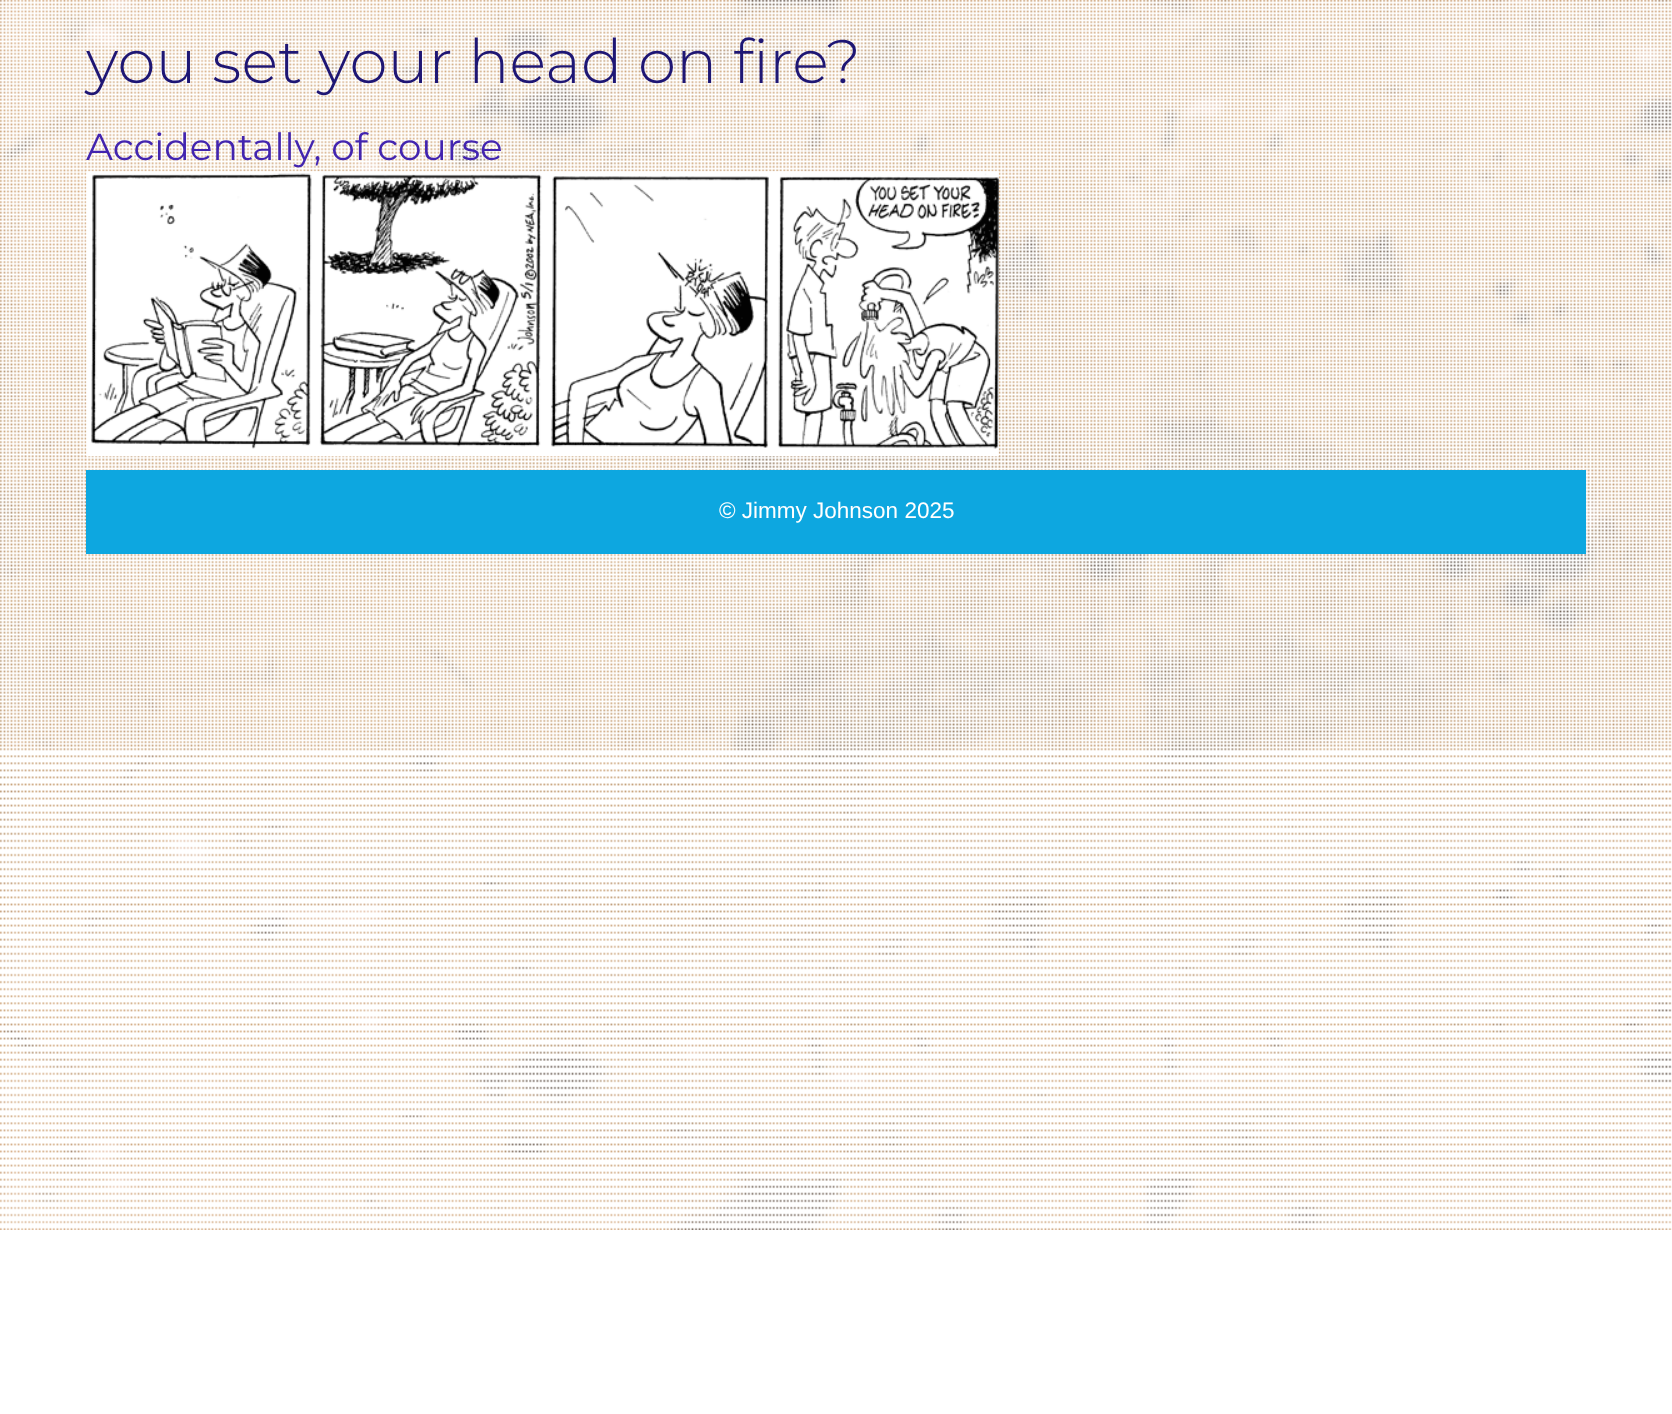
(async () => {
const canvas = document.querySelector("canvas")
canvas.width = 1672
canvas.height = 1414
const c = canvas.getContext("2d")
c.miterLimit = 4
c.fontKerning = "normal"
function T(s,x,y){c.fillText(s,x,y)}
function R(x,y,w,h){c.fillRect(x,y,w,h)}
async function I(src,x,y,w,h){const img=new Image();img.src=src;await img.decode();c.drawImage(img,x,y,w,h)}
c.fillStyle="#fff"
R(0,0,1672,1414)
await I("1.png",0,0,1672,1230)
c.font="300 61.25px Montserrat"
c.fillStyle="#1e1674"
T("you set your head on fire?",86,83)
c.font="37.5px Montserrat"
c.fillStyle="#4224af"
T("Accidentally, of course",86,160)
await I("2.png",86,171,913,286)
c.fillStyle="#0da7e0"
R(86,470,1500,84)
c.font="22.5px Liberation Sans"
c.fillStyle="#fff"
T("© Jimmy Johnson 2025",719,518)
})()
